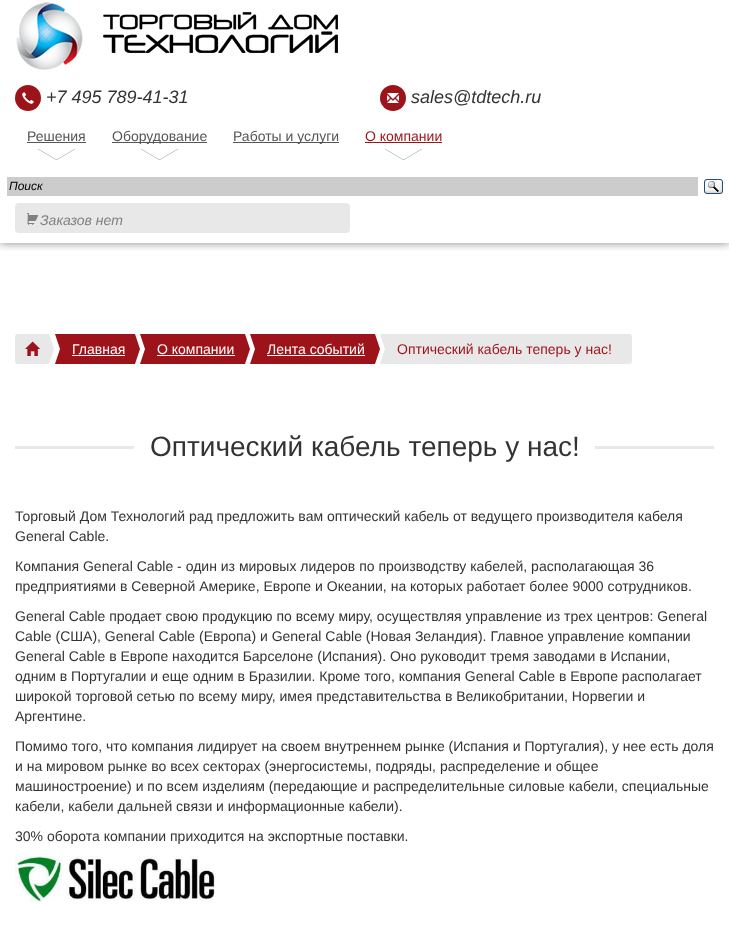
(async () => {
const canvas = document.querySelector("canvas")
canvas.width = 729
canvas.height = 943
const c = canvas.getContext("2d")
c.miterLimit = 4
c.fontKerning = "normal"
function T(s,x,y){c.fillText(s,x,y)}
function R(x,y,w,h){c.fillRect(x,y,w,h)}
function Q(x,y,w,h,r){c.beginPath();c.roundRect(x,y,w,h,r);c.fill()}
async function I(src,x,y,w,h){const img=new Image();img.src=src;await img.decode();c.drawImage(img,x,y,w,h)}
let path
c.fillStyle="#fff"
R(0,0,729,943)
c.save()
c.beginPath()
c.rect(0,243,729,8)
c.clip()
c.fillStyle="#00000066"
c.filter="blur(4px)"
c.beginPath()
c.rect(0,1,729,243)
c.fill()
c.filter="none"
c.restore()
await I("1.png",16,2,322,68)
c.fillStyle="#9d131a"
c.beginPath()
c.arc(28,98,13,0,7)
c.fill()
await I("2.png",22,92,12,12)
c.font="italic 18px Liberation Sans"
c.fillStyle="#333"
T("+7 495 789-41-31",46,103)
c.fillStyle="#9d131a"
c.beginPath()
c.arc(393,98,13,0,7)
c.fill()
await I("3.png",387,93,12,10)
c.fillStyle="#333"
T("sales@tdtech.ru",411,103)
await I("4.png",38,149,37,11)
c.font="14px Liberation Sans"
c.fillStyle="#555"
T("Решения",27,141)
R(27,142,59,1)
await I("4.png",141,149,37,11)
R(112,142,95,1)
T("Оборудование",112,141)
R(233,142,106,1)
T("Работы и услуги",233,141)
await I("4.png",385,149,37,11)
c.fillStyle="#9d131a"
T("О компании",365,141)
R(365,142,77,1)
c.fillStyle="#ccc"
R(7,177,691,19)
c.font="italic 12px Liberation Sans"
c.fillStyle="#000"
T("Поиск",9,190)
await I("5.png",704,179,19,15)
c.fillStyle="#e8e8e8"
Q(15,203,335,30,4)
await I("6.png",27,213,12,12)
c.font="italic 14px Liberation Sans"
c.fillStyle="#808080"
T("Заказов нет",40,225)
c.fillStyle="#e8e8e8"
c.beginPath()
c.roundRect(15,334,34,30,[3,0,0,3])
c.fill()
await I("7.png",25,341,15,15)
path = new Path2D("M49 364v-30l5 15z")
c.fill(path)
c.fillStyle="#9d131a"
R(62,334,73,30)
path = new Path2D("M55 334h7l-2 15z")
c.fill(path)
R(60,334,2,30)
path = new Path2D("M62 364h-7l5-15z")
c.fill(path)
c.font="14px Liberation Sans"
c.fillStyle="#fff"
T("Главная",72,354)
R(72,355,53,1)
c.fillStyle="#9d131a"
path = new Path2D("M135 364v-30l5 15z")
c.fill(path)
R(147,334,98,30)
path = new Path2D("M140 334h7l-2 15z")
c.fill(path)
R(145,334,2,30)
path = new Path2D("M147 364h-7l5-15z")
c.fill(path)
c.fillStyle="#fff"
T("О компании",157,354)
R(157,355,78,1)
c.fillStyle="#9d131a"
path = new Path2D("M245 364v-30l5 15z")
c.fill(path)
R(257,334,118,30)
path = new Path2D("M250 334h7l-2 15z")
c.fill(path)
R(255,334,2,30)
path = new Path2D("M257 364h-7l5-15z")
c.fill(path)
c.fillStyle="#fff"
T("Лента событий",267,354)
R(267,355,98,1)
c.fillStyle="#9d131a"
path = new Path2D("M375 364v-30l5 15z")
c.fill(path)
c.fillStyle="#e8e8e8"
c.beginPath()
c.roundRect(387,334,245,30,[0,3,3,0])
c.fill()
path = new Path2D("M380 334h7l-2 15z")
c.fill(path)
R(385,334,2,30)
path = new Path2D("M387 364h-7l5-15z")
c.fill(path)
c.fillStyle="#9d131a"
T("Оптический кабель теперь у нас!",397,354)
c.fillStyle="#e8e8e8"
R(15,446,119,3)
c.font="28px Liberation Sans"
c.fillStyle="#333"
T("Оптический кабель теперь у нас!",150,456)
c.fillStyle="#e8e8e8"
R(595,446,119,3)
c.font="14px Liberation Sans"
c.fillStyle="#333"
T("Торговый Дом Технологий рад предложить вам оптический кабель от ведущего производителя кабеля",15,521)
T("General Cable.",15,541)
T("Компания General Cable - один из мировых лидеров по производству кабелей, располагающая 36",15,571)
T("предприятиями в Северной Америке, Европе и Океании, на которых работает более 9000 сотрудников.",15,591)
T("General Cable продает свою продукцию по всему миру, осуществляя управление из трех центров: General",15,621)
T("Cable (США), General Cable (Европа) и General Cable (Новая Зеландия). Главное управление компании",15,641)
T("General Cable в Европе находится Барселоне (Испания). Оно руководит тремя заводами в Испании,",15,661)
T("одним в Португалии и еще одним в Бразилии. Кроме того, компания General Cable в Европе располагает",15,681)
T("широкой торговой сетью по всему миру, имея представительства в Великобритании, Норвегии и",15,701)
T("Аргентине.",15,721)
T("Помимо того, что компания лидирует на своем внутреннем рынке (Испания и Португалия), у нее есть доля",15,751)
T("и на мировом рынке во всех секторах (энергосистемы, подряды, распределение и общее",15,771)
T("машиностроение) и по всем изделиям (передающие и распределительные силовые кабели, специальные",15,791)
T("кабели, кабели дальней связи и информационные кабели).",15,811)
T("30% оборота компании приходится на экспортные поставки.",15,841)
await I("8.png",15,856,200,46)
})()
